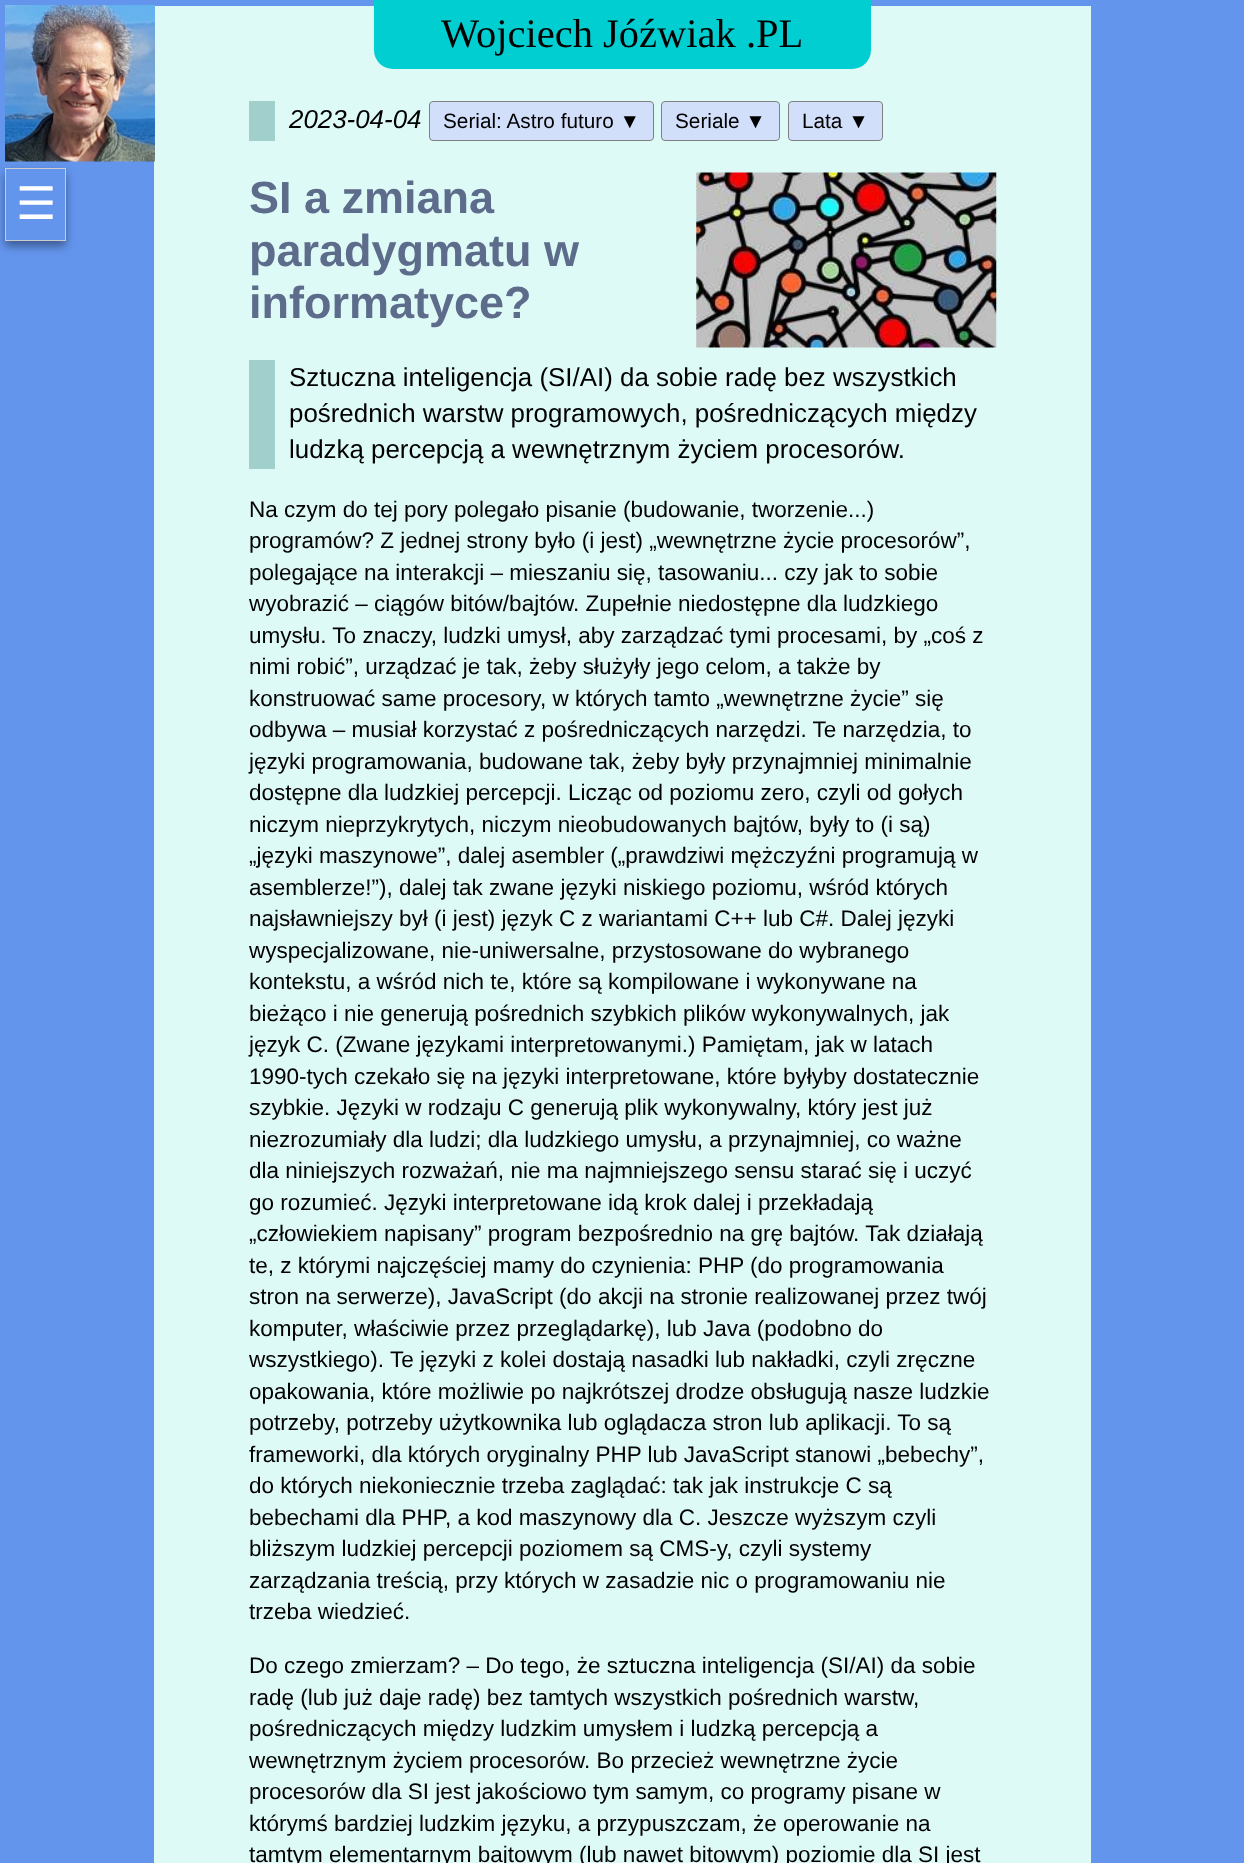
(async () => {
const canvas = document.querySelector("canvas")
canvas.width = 1244
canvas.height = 1863
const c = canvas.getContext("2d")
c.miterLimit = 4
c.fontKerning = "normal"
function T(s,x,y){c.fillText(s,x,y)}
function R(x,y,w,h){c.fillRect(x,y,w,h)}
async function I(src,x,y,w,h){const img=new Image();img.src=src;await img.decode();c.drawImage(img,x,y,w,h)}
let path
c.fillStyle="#6495ed"
R(0,0,1244,1863)
c.fillStyle="#defaf7"
R(154,6,937,1857)
c.fillStyle="#00ced1"
c.beginPath()
c.roundRect(374,0,497,69,[0,0,19,19])
c.fill()
c.font="40.5px Liberation Serif"
c.fillStyle="#000"
T("Wojciech Jóźwiak .PL",441,47)
await I("1.png",5,5,150,157)
c.save()
path = new Path2D("M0 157h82v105h-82zm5 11h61v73h-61z")
c.clip(path,"evenodd")
c.fillStyle="#00000066"
c.filter="blur(5px)"
c.beginPath()
c.rect(5,173,61,73)
c.fill()
c.filter="none"
c.restore()
c.strokeStyle="#ccc"
c.strokeRect(5.5,168.5,60,72)
c.font="45px DejaVu Sans"
c.fillStyle="#fff"
T("☰",16,219)
c.fillStyle="#a1cfcb"
R(249,101,26,40)
c.font="italic 25.9px Liberation Sans"
c.fillStyle="#000"
T("2023-04-04",289,128)
c.fillStyle="#d1dffa"
c.beginPath()
c.roundRect(429.5,101.5,224,39,3.5)
c.fill()
c.strokeStyle="#808080"
c.stroke()
c.font="20.75px Liberation Sans"
c.fillStyle="#000"
T("Serial: Astro futuro ▼",443,128)
c.fillStyle="#d1dffa"
c.beginPath()
c.roundRect(661.5,101.5,118,39,3.5)
c.fill()
c.stroke()
c.fillStyle="#000"
T("Seriale ▼",675,128)
c.fillStyle="#d1dffa"
c.beginPath()
c.roundRect(788.5,101.5,94,39,3.5)
c.fill()
c.stroke()
c.fillStyle="#000"
T("Lata ▼",802,128)
c.font="bold 45px Liberation Sans"
c.fillStyle="#5c6c8a"
T("SI a zmiana",249,213)
await I("2.png",696,172,301,176)
T("paradygmatu w",249,266)
T("informatyce?",249,318)
c.fillStyle="#a1cfcb"
R(249,360,26,109)
c.font="25.9px Liberation Sans"
c.fillStyle="#000"
T("Sztuczna inteligencja (SI/AI) da sobie radę bez wszystkich",289,386)
T("pośrednich warstw programowych, pośredniczących między",289,422)
T("ludzką percepcją a wewnętrznym życiem procesorów.",289,458)
c.font="22.5px Liberation Sans"
T("Na czym do tej pory polegało pisanie (budowanie, tworzenie...)",249,517)
T("programów? Z jednej strony było (i jest) „wewnętrzne życie procesorów”,",249,548)
T("polegające na interakcji – mieszaniu się, tasowaniu... czy jak to sobie",249,580)
T("wyobrazić – ciągów bitów/bajtów. Zupełnie niedostępne dla ludzkiego",249,611)
T("umysłu. To znaczy, ludzki umysł, aby zarządzać tymi procesami, by „coś z",249,643)
T("nimi robić”, urządzać je tak, żeby służyły jego celom, a także by",249,674)
T("konstruować same procesory, w których tamto „wewnętrzne życie” się",249,706)
T("odbywa – musiał korzystać z pośredniczących narzędzi. Te narzędzia, to",249,737)
T("języki programowania, budowane tak, żeby były przynajmniej minimalnie",249,769)
T("dostępne dla ludzkiej percepcji. Licząc od poziomu zero, czyli od gołych",249,800)
T("niczym nieprzykrytych, niczym nieobudowanych bajtów, były to (i są)",249,832)
T("„języki maszynowe”, dalej asembler („prawdziwi mężczyźni programują w",249,863)
T("asemblerze!”), dalej tak zwane języki niskiego poziomu, wśród których",249,895)
T("najsławniejszy był (i jest) język C z wariantami C++ lub C#. Dalej języki",249,926)
T("wyspecjalizowane, nie-uniwersalne, przystosowane do wybranego",249,958)
T("kontekstu, a wśród nich te, które są kompilowane i wykonywane na",249,989)
T("bieżąco i nie generują pośrednich szybkich plików wykonywalnych, jak",249,1021)
T("język C. (Zwane językami interpretowanymi.) Pamiętam, jak w latach",249,1052)
T("1990-tych czekało się na języki interpretowane, które byłyby dostatecznie",249,1084)
T("szybkie. Języki w rodzaju C generują plik wykonywalny, który jest już",249,1115)
T("niezrozumiały dla ludzi; dla ludzkiego umysłu, a przynajmniej, co ważne",249,1147)
T("dla niniejszych rozważań, nie ma najmniejszego sensu starać się i uczyć",249,1178)
T("go rozumieć. Języki interpretowane idą krok dalej i przekładają",249,1210)
T("„człowiekiem napisany” program bezpośrednio na grę bajtów. Tak działają",249,1241)
T("te, z którymi najczęściej mamy do czynienia: PHP (do programowania",249,1273)
T("stron na serwerze), JavaScript (do akcji na stronie realizowanej przez twój",249,1304)
T("komputer, właściwie przez przeglądarkę), lub Java (podobno do",249,1336)
T("wszystkiego). Te języki z kolei dostają nasadki lub nakładki, czyli zręczne",249,1367)
T("opakowania, które możliwie po najkrótszej drodze obsługują nasze ludzkie",249,1399)
T("potrzeby, potrzeby użytkownika lub oglądacza stron lub aplikacji. To są",249,1430)
T("frameworki, dla których oryginalny PHP lub JavaScript stanowi „bebechy”,",249,1462)
T("do których niekoniecznie trzeba zaglądać: tak jak instrukcje C są",249,1493)
T("bebechami dla PHP, a kod maszynowy dla C. Jeszcze wyższym czyli",249,1525)
T("bliższym ludzkiej percepcji poziomem są CMS-y, czyli systemy",249,1556)
T("zarządzania treścią, przy których w zasadzie nic o programowaniu nie",249,1588)
T("trzeba wiedzieć.",249,1619)
T("Do czego zmierzam? – Do tego, że sztuczna inteligencja (SI/AI) da sobie",249,1673)
T("radę (lub już daje radę) bez tamtych wszystkich pośrednich warstw,",249,1705)
T("pośredniczących między ludzkim umysłem i ludzką percepcją a",249,1736)
T("wewnętrznym życiem procesorów. Bo przecież wewnętrzne życie",249,1768)
T("procesorów dla SI jest jakościowo tym samym, co programy pisane w",249,1799)
T("którymś bardziej ludzkim języku, a przypuszczam, że operowanie na",249,1831)
T("tamtym elementarnym bajtowym (lub nawet bitowym) poziomie dla SI jest",249,1862)
})()
